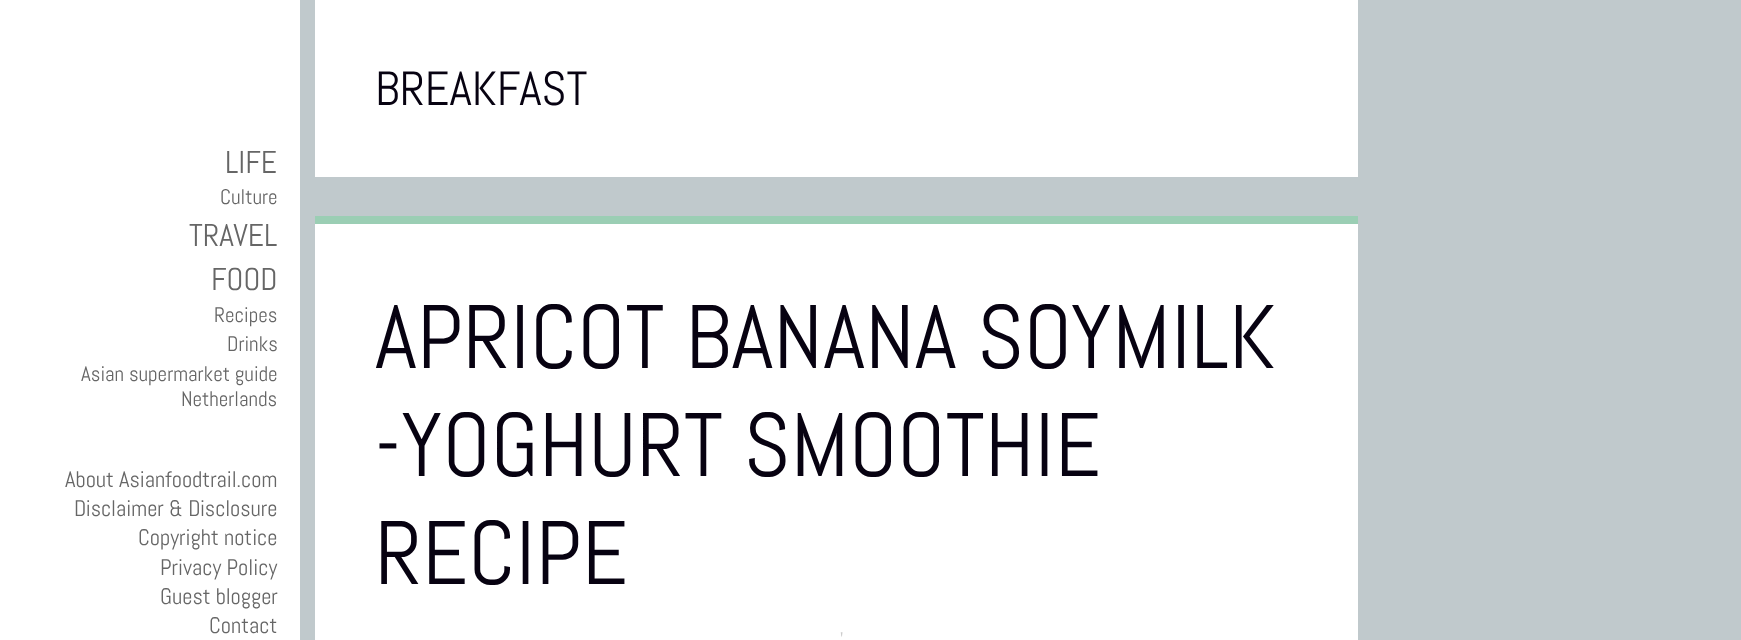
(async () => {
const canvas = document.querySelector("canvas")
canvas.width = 1741
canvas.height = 640
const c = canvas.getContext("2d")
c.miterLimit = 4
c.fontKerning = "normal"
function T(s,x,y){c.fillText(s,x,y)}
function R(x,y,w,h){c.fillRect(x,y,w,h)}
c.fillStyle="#c0c9cc"
R(0,0,1741,640)
c.fillStyle="#fff"
R(0,0,300,640)
R(315,0,1043,177)
c.font="48px Abel"
c.fillStyle="#070211"
T("BREAKFAST",375,105)
c.fillStyle="#9bceb4"
R(315,216,1043,8)
c.fillStyle="#fff"
R(315,224,1043,416)
c.font="90px Abel"
c.fillStyle="#070211"
T("APRICOT BANANA SOYMILK",375,368)
T("-YOGHURT SMOOTHIE",375,476)
T("RECIPE",375,584)
c.font="18px Liberation Serif"
c.fillStyle="#ccc"
T("'",840,644)
c.font="31.5px Abel"
c.fillStyle="#666"
T("LIFE",225,173)
c.font="21px Abel"
T("Culture",220,204)
c.font="31.5px Abel"
T("TRAVEL",189,246)
T("FOOD",211,290)
c.font="21px Abel"
T("Recipes",214,322)
T("Drinks",227,351)
T("Asian supermarket guide",81,381)
T("Netherlands",181,406)
c.font="22.5px Abel"
T("About Asianfoodtrail.com",65,487)
T("Disclaimer & Disclosure",74,516)
T("Copyright notice",138,545)
T("Privacy Policy",160,575)
T("Guest blogger",160,604)
T("Contact",209,633)
})()
